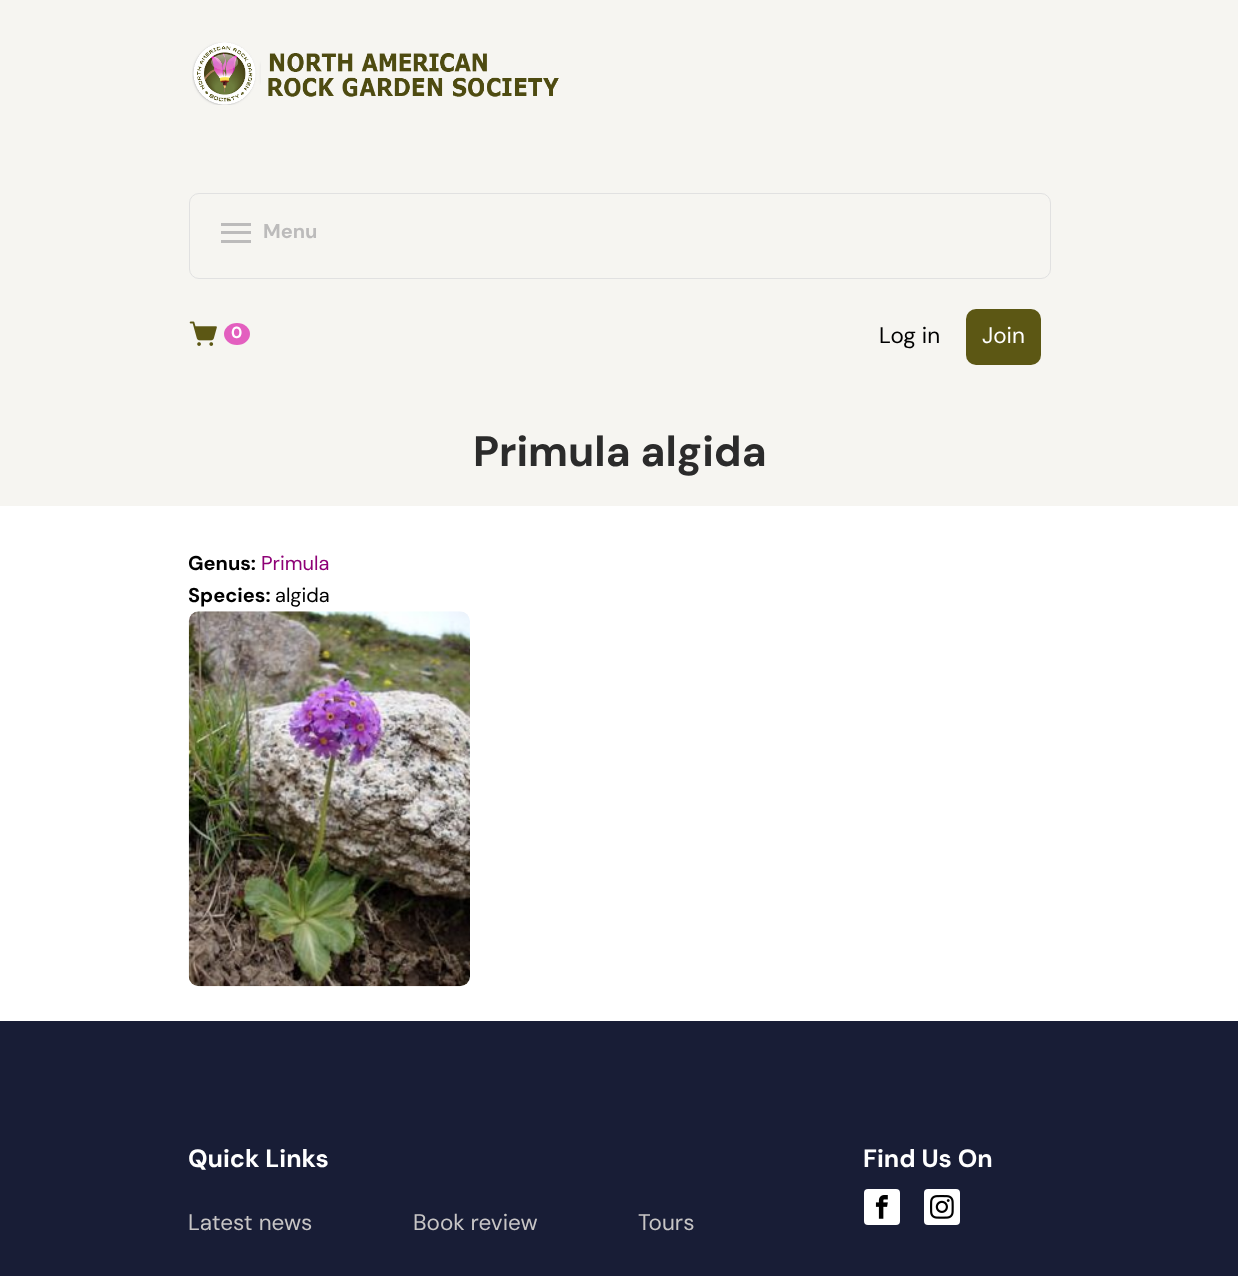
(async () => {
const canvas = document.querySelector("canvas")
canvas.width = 1238
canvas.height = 1276
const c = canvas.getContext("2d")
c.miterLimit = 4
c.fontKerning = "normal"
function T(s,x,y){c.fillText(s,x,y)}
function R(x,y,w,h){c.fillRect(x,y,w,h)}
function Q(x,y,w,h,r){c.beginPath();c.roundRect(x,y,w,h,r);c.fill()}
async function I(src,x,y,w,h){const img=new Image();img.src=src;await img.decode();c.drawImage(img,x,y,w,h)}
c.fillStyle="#fff"
R(0,0,1238,1276)
c.fillStyle="#f6f5f1"
R(0,0,1238,506)
await I("1.png",192,42,367,63)
c.beginPath()
c.roundRect(189.5,193.5,861,85,9.5)
c.strokeStyle="#e1e1e1"
c.stroke()
c.fillStyle="#bcbbbb"
R(221,231,30,3)
R(221,223,30,3)
R(221,240,30,3)
c.font="bold 20px DM Sans"
T("Menu",263,238)
await I("2.png",189,321,28,25)
c.fillStyle="#e35fbf"
c.beginPath()
c.ellipse(237,334,13,11,0,0,7)
c.fill()
c.font="bold 16px DM Sans"
c.fillStyle="#fff"
T("0",231,338)
c.font="22.5px DM Sans"
c.fillStyle="#000"
T("Log in",879,343)
c.fillStyle="#5c5714"
Q(966,309,75,56,10)
c.fillStyle="#fff"
T("Join",982,343)
c.font="bold 42.5px DM Sans"
c.fillStyle="#2b2b2b"
T("Primula algida",473,466)
c.font="bold 20px DM Sans"
c.fillStyle="#000"
T("Genus:",188,570)
c.font="20px DM Sans"
c.fillStyle="#8e0076"
T("Primula",261,570)
c.font="bold 20px DM Sans"
c.fillStyle="#000"
T("Species:",188,602)
c.font="20px DM Sans"
T("algida",275,602)
await I("3.png",188,611,282,376)
c.fillStyle="#181d36"
R(0,1021,1238,255)
c.font="bold 25px DM Sans"
c.fillStyle="#fff"
T("Quick Links",188,1167)
c.font="22.5px DM Sans"
c.fillStyle="#c7c5c5"
T("Latest news",188,1230)
c.font="bold 25px DM Sans"
c.fillStyle="#fff"
T("Find Us On",863,1167)
Q(864,1189,36,36,4)
await I("4.png",875,1195,13,24)
Q(924,1189,36,36,4)
await I("5.png",930,1195,24,24)
c.font="22.5px DM Sans"
c.fillStyle="#c7c5c5"
T("Book review",413,1230)
T("Tours",638,1230)
})()
